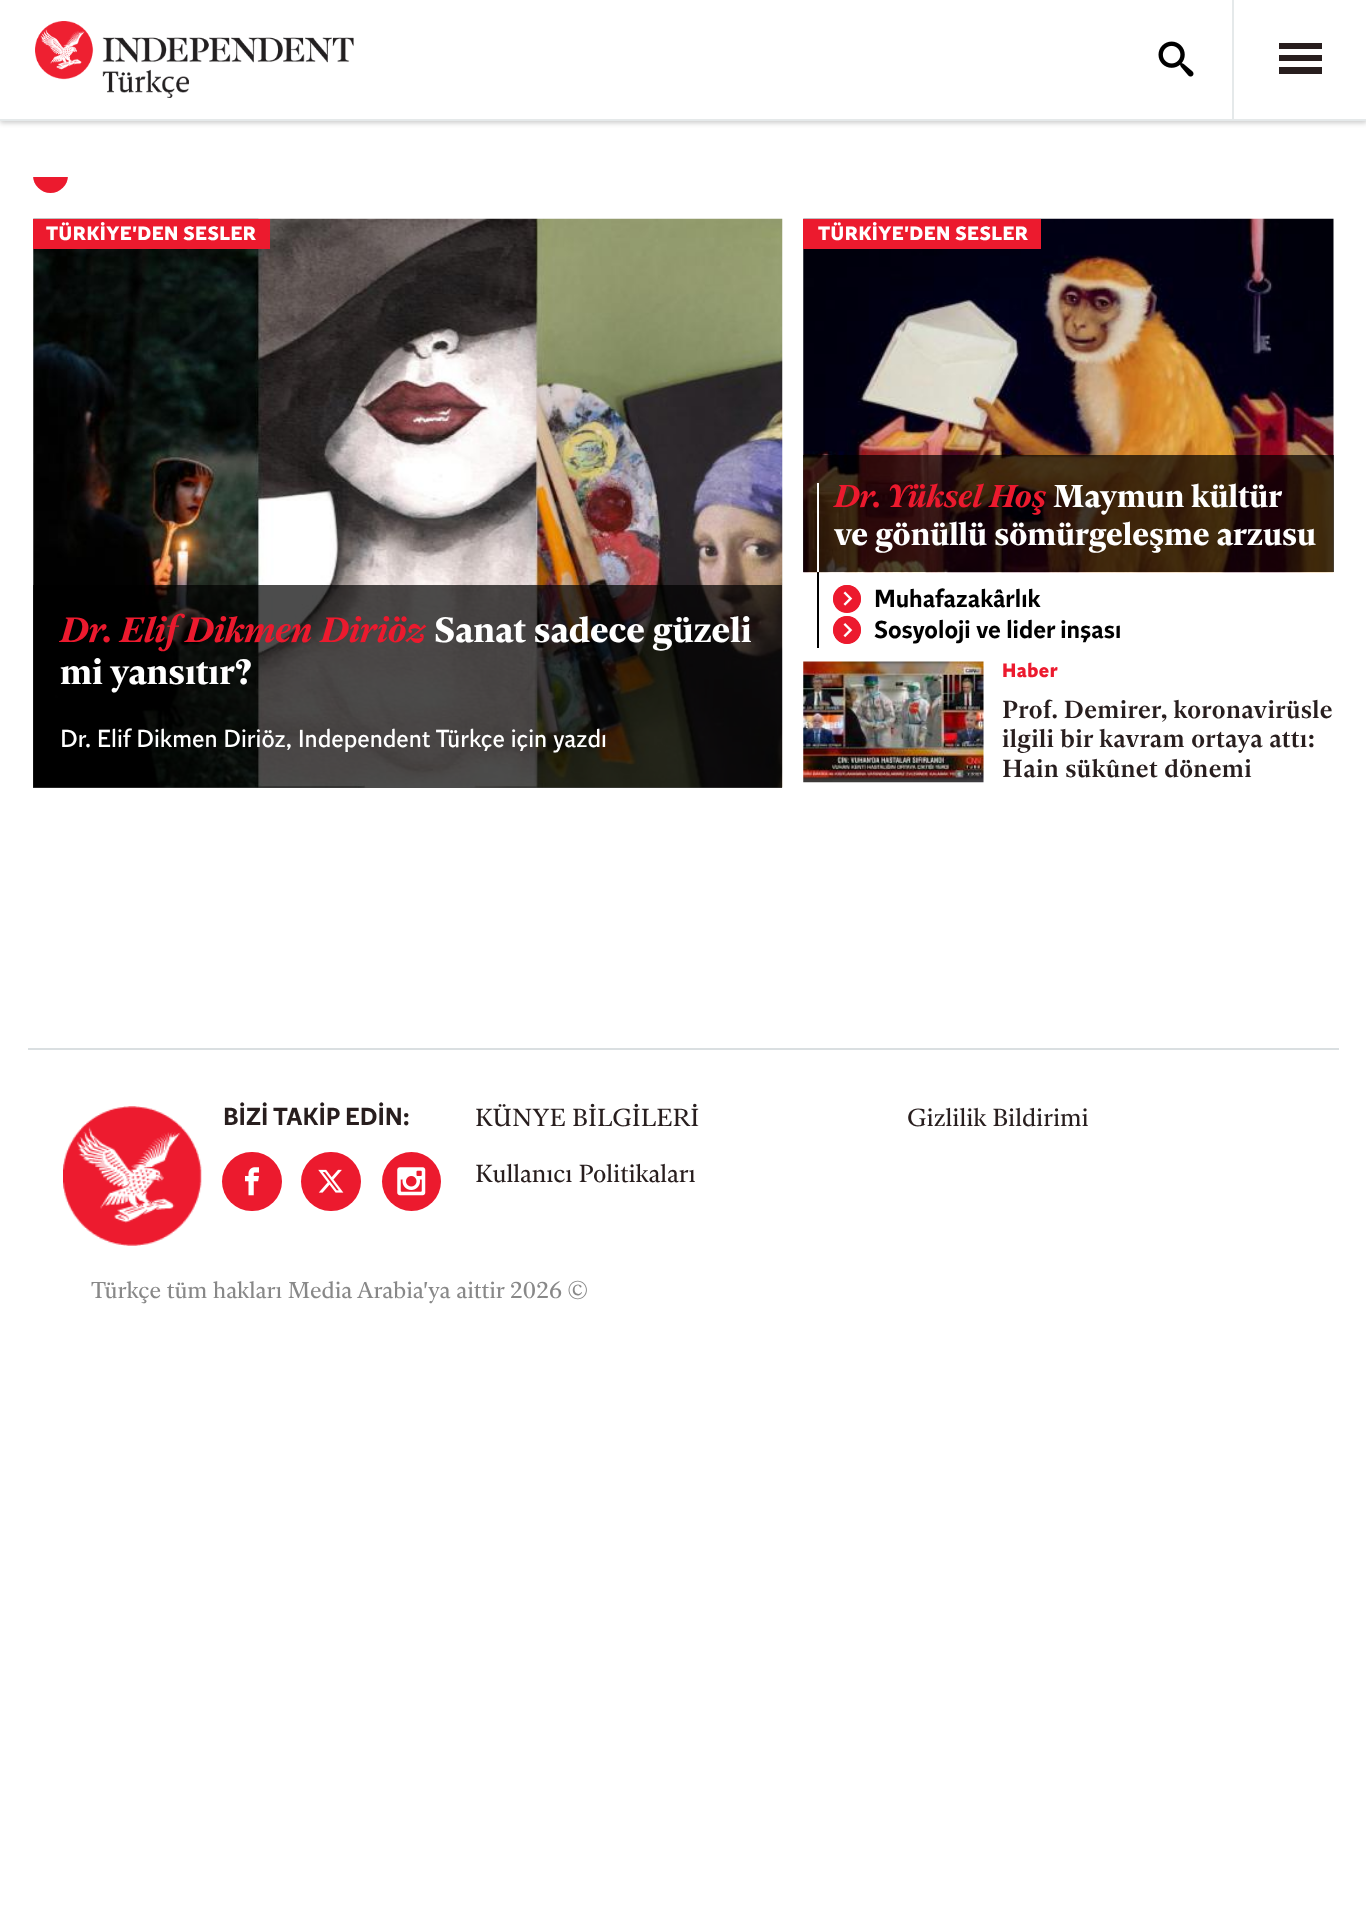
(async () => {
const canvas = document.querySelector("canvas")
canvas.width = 1366
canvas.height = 1927
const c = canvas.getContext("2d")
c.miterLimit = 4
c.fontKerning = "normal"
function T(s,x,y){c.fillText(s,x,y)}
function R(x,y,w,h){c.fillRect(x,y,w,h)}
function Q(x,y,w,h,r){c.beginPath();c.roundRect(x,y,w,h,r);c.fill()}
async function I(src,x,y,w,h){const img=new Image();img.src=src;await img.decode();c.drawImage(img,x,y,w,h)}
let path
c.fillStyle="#fff"
R(0,0,1366,1927)
c.fillStyle="#00000033"
c.filter="blur(2.5px)"
c.beginPath()
c.rect(0,2,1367,121)
c.fill()
c.filter="none"
c.fillStyle="#fff"
R(0,0,1366,119)
c.fillStyle="#e5e9ea"
R(0,119,1366,2)
await I("1.png",35,21,319,77)
R(1232,0,2,119)
await I("2.png",1158,41,36,36)
c.fillStyle="#281e1e"
path = new Path2D("M1279 43h43v6h-43zm0 12h43v6h-43zm0 12h43v7h-43z")
c.fill(path)
c.fillStyle="#ec1a2e"
c.beginPath()
c.arc(50.5,175.5,17.5,0,7)
c.fill()
c.fillStyle="#fff"
R(33,158,35,19)
await I("3.png",33,218,750,570)
c.fillStyle="#ec1a2e"
R(33,219,237,30)
c.letterSpacing="0.5px"
c.font="bold 19.25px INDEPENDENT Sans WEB"
c.fillStyle="#fff"
T("TÜRKİYE'DEN SESLER",46,240)
c.fillStyle="#000000b3"
R(33,585,749,203)
c.letterSpacing="0px"
c.font="italic bold 35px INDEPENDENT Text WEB"
c.fillStyle="#ec1a2e"
T("Dr. Elif Dikmen Diriöz",60,642)
c.font="bold 35px INDEPENDENT Text WEB"
c.fillStyle="#fff"
T("Sanat sadece güzeli",434,642)
T("mi yansıtır?",60,684)
c.font="24.5px INDEPENDENT Sans WEB"
T("Dr. Elif Dikmen Diriöz, Independent Türkçe için yazdı",60,747)
c.fillStyle="#000"
R(817,572,2,76)
await I("4.png",803,218,531,355)
c.fillStyle="#ec1a2e"
R(803,219,238,30)
c.letterSpacing="0.5px"
c.font="bold 19.25px INDEPENDENT Sans WEB"
c.fillStyle="#fff"
T("TÜRKİYE'DEN SESLER",818,240)
c.fillStyle="#000000b3"
R(803,455,531,117)
c.fillStyle="#fff"
R(817,483,2,89)
c.letterSpacing="0px"
c.font="italic bold 31.5px INDEPENDENT Text WEB"
c.fillStyle="#ec1a2e"
T("Dr. Yüksel Hoş",834,507)
c.font="bold 31.5px INDEPENDENT Text WEB"
c.fillStyle="#fff"
T("Maymun kültür",1053,507)
T("ve gönüllü sömürgeleşme arzusu",834,545)
c.fillStyle="#ec1a2e"
c.beginPath()
c.arc(847,599,14,0,7)
c.fill()
await I("5.png",833,585,28,28)
c.font="500 24.5px INDEPENDENT Sans WEB"
c.fillStyle="#000"
T("Muhafazakârlık",874,607)
c.fillStyle="#ec1a2e"
c.beginPath()
c.arc(847,630,14,0,7)
c.fill()
await I("6.png",833,616,28,28)
c.fillStyle="#000"
T("Sosyoloji ve lider inşası",874,638)
await I("7.png",803,661,181,122)
c.letterSpacing="0.5px"
c.font="bold 19.25px INDEPENDENT Sans WEB"
c.fillStyle="#ec1a2e"
T("Haber",1002,677)
c.letterSpacing="0.4px"
c.font="500 24.5px INDEPENDENT Text WEB"
c.fillStyle="#281e1e"
T("Prof. Demirer, koronavirüsle",1002,718)
T("ilgili bir kavram ortaya attı:",1002,747)
T("Hain sükûnet dönemi",1002,777)
c.fillStyle="#dadfe1"
R(28,1048,1311,2)
await I("8.png",63,1106,139,140)
c.letterSpacing="0px"
c.font="500 24.5px INDEPENDENT Sans WEB"
c.fillStyle="#281e1e"
T("BİZİ TAKİP EDİN:",223,1125)
c.fillStyle="#ec1a2e"
Q(222,1152,60,59,29.5)
await I("9.png",245,1167,14,29)
Q(301,1152,60,59,29.5)
await I("10.png",318,1169,26,24)
c.beginPath()
c.arc(411.5,1181.5,29.5,0,7)
c.fill()
await I("11.png",397,1167,29,29)
c.font="24.5px INDEPENDENT Text WEB"
c.fillStyle="#281e1e"
T("KÜNYE BİLGİLERİ",475,1126)
T("Gizlilik Bildirimi",907,1126)
T("Kullanıcı Politikaları",475,1182)
c.font="22.75px INDEPENDENT Text WEB"
c.fillStyle="#888"
T("Türkçe tüm hakları Media Arabia'ya aittir 2026 ©",91,1298)
})()
